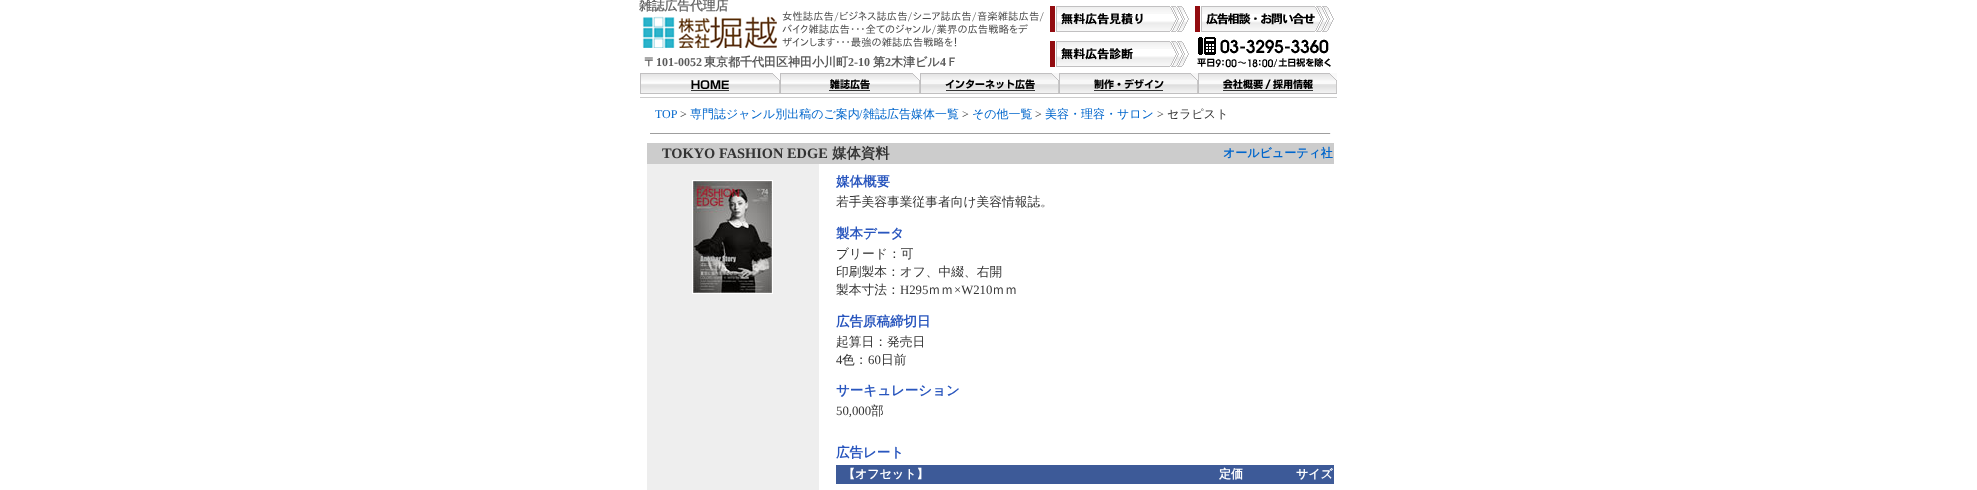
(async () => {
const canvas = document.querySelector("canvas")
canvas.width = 1977
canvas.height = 490
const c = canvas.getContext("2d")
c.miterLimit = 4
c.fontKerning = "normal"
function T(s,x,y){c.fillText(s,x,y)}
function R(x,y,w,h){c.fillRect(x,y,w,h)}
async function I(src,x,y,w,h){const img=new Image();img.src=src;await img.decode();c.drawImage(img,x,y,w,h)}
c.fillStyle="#fff"
R(0,0,1977,490)
c.font="bold 12.75px WenQuanYi Zen Hei"
c.fillStyle="#6a6a6a"
T("雑誌広告代理店",639,10)
await I("1.png",642,16,135,32)
c.font="10.4px IPAPGothic"
c.fillStyle="#4d4d4d"
T("女性誌広告/ビジネス誌広告/シニア誌広告/音楽雑誌広告/",782,20)
T("バイク雑誌広告･･･全てのジャンル/業界の広告戦略をデ",782,33)
T("ザインします･･･最強の雑誌広告戦略を！",782,46)
await I("2.png",1050,6,139,26)
await I("3.png",1050,41,139,26)
await I("4.png",1195,6,139,26)
await I("5.png",1197,37,134,31)
c.font="bold 12px WenQuanYi Zen Hei"
c.fillStyle="#5a5a5a"
T("〒",644,66)
c.font="bold 12px Liberation Serif"
T("101-0052",656,66)
c.font="bold 12px WenQuanYi Zen Hei"
T("東京都千代田区神田小川町",704,66)
c.font="bold 12px Liberation Serif"
T("2-10",848,66)
c.font="bold 12px WenQuanYi Zen Hei"
T("第",873,66)
c.font="bold 12px Liberation Serif"
T("2",885,66)
c.font="bold 12px WenQuanYi Zen Hei"
T("木津ビル",891,66)
c.font="bold 12px Liberation Serif"
T("4",940,66)
c.font="bold 12px WenQuanYi Zen Hei"
T("Ｆ",946,66)
await I("6.png",640,73,140,21)
await I("7.png",780,73,140,21)
await I("8.png",920,73,139,21)
await I("9.png",1059,73,139,21)
await I("10.png",1198,73,139,21)
c.fillStyle="#ccc"
R(640,97,697,1)
c.font="12px Liberation Serif"
c.fillStyle="#06c"
T("TOP",655,118)
c.fillStyle="#333"
T(">",680,118)
c.font="500 12px WenQuanYi Zen Hei"
c.fillStyle="#06c"
T("専門誌ジャンル別出稿のご案内",690,118)
c.font="12px Liberation Serif"
T("/",859,118)
c.font="500 12px WenQuanYi Zen Hei"
T("雑誌広告媒体一覧",863,118)
c.font="12px Liberation Serif"
c.fillStyle="#333"
T(">",962,118)
c.font="500 12px WenQuanYi Zen Hei"
c.fillStyle="#06c"
T("その他一覧",972,118)
c.font="12px Liberation Serif"
c.fillStyle="#333"
T(">",1035,118)
c.font="500 12px WenQuanYi Zen Hei"
c.fillStyle="#06c"
T("美容・理容・サロン",1045,118)
c.font="12px Liberation Serif"
c.fillStyle="#333"
T(">",1157,118)
c.font="500 12px WenQuanYi Zen Hei"
T("セラピスト",1167,118)
c.fillStyle="#9f9f9f"
R(650,133,681,1)
c.fillStyle="#eee"
R(1330,133,1,1)
c.fillStyle="#ccc"
R(647,143,687,21)
c.font="bold 14.4px Liberation Serif"
c.fillStyle="#333"
T("TOKYO FASHION EDGE",662,158)
c.font="bold 14.4px WenQuanYi Zen Hei"
T("媒体資料",832,158)
c.font="bold 12px WenQuanYi Zen Hei"
c.fillStyle="#06c"
T("オールビューティ社",1223,157)
c.fillStyle="#eee"
R(647,164,172,326)
c.fillStyle="#fff"
R(692,180,81,114)
await I("11.png",693,181,79,112)
c.font="bold 13.5px WenQuanYi Zen Hei"
c.fillStyle="#2956be"
T("媒体概要",836,186)
c.font="500 12.75px WenQuanYi Zen Hei"
c.fillStyle="#333"
T("若手美容事業従事者向け美容情報誌。",836,206)
c.font="bold 13.5px WenQuanYi Zen Hei"
c.fillStyle="#2956be"
T("製本データ",836,238)
c.font="500 12.75px WenQuanYi Zen Hei"
c.fillStyle="#333"
T("ブリード：可",836,258)
T("印刷製本：オフ、中綴、右開",836,276)
T("製本寸法：",836,294)
c.font="12.75px Liberation Serif"
T("H295",900,294)
c.font="500 12.75px WenQuanYi Zen Hei"
T("ｍｍ",928,294)
c.font="12.75px Liberation Serif"
T("×W210",954,294)
c.font="500 12.75px WenQuanYi Zen Hei"
T("ｍｍ",992,294)
c.font="bold 13.5px WenQuanYi Zen Hei"
c.fillStyle="#2956be"
T("広告原稿締切日",836,326)
c.font="500 12.75px WenQuanYi Zen Hei"
c.fillStyle="#333"
T("起算日：発売日",836,346)
c.font="12.75px Liberation Serif"
T("4",836,364)
c.font="500 12.75px WenQuanYi Zen Hei"
T("色：",842,364)
c.font="12.75px Liberation Serif"
T("60",868,364)
c.font="500 12.75px WenQuanYi Zen Hei"
T("日前",881,364)
c.font="bold 13.5px WenQuanYi Zen Hei"
c.fillStyle="#2956be"
T("サーキュレーション",836,395)
c.font="12.75px Liberation Serif"
c.fillStyle="#333"
T("50,000",836,415)
c.font="500 12.75px WenQuanYi Zen Hei"
T("部",871,415)
c.font="bold 13.5px WenQuanYi Zen Hei"
c.fillStyle="#2956be"
T("広告レート",836,457)
c.fillStyle="#3d5a98"
R(836,465,498,19)
c.font="bold 12px WenQuanYi Zen Hei"
c.fillStyle="#fff"
T("【オフセット】",843,478)
T("定価",1219,478)
T("サイズ",1296,478)
})()
